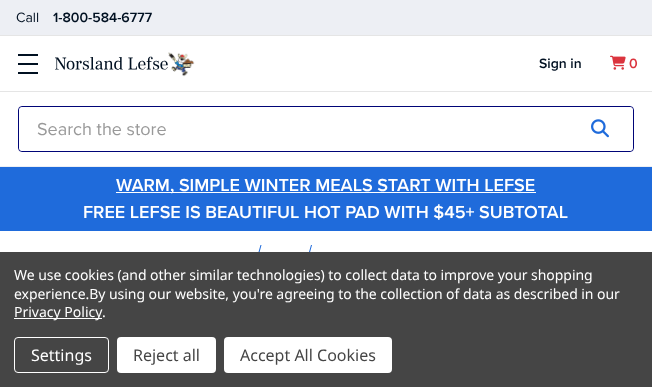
(async () => {
const canvas = document.querySelector("canvas")
canvas.width = 652
canvas.height = 387
const c = canvas.getContext("2d")
c.miterLimit = 4
c.fontKerning = "normal"
function T(s,x,y){c.fillText(s,x,y)}
function R(x,y,w,h){c.fillRect(x,y,w,h)}
function Q(x,y,w,h,r){c.beginPath();c.roundRect(x,y,w,h,r);c.fill()}
async function I(src,x,y,w,h){const img=new Image();img.src=src;await img.decode();c.drawImage(img,x,y,w,h)}
let path
c.fillStyle="#fff"
R(0,0,652,387)
c.fillStyle="#edeff4"
R(0,166,652,1)
R(0,0,652,35)
c.font="14px Proxima Nova"
c.fillStyle="#001021"
T("Call",16,22)
c.font="600 14px Proxima Nova"
T("1-800-584-6777",53,22)
c.fillStyle="#e5e5e5"
R(0,35,652,1)
c.fillStyle="#001021"
R(18,63,20,2)
R(18,54,20,2)
R(18,72,20,2)
await I("1.png",55,52,140,25)
T("Sign in",539,68)
await I("2.png",610,55,16,15)
c.fillStyle="#db343e"
T("0",629,68)
c.fillStyle="#e5e5e5"
R(0,91,652,1)
c.beginPath()
c.roundRect(18.5,106.5,615,45,3.5)
c.strokeStyle="#000577"
c.stroke()
c.fillStyle="#fff"
Q(19,107,614,44,4)
c.font="18px Proxima Nova"
c.fillStyle="#999"
T("Search the store",37,135)
await I("3.png",591,119,18,19)
c.fillStyle="#1f6bdb"
R(0,167,652,64)
c.fillStyle="#fff"
R(116,192,420,1)
c.font="600 18px Proxima Nova"
T("WARM, SIMPLE WINTER MEALS START WITH LEFSE",116,191)
T("FREE LEFSE IS BEAUTIFUL HOT PAD WITH $45+ SUBTOTAL",83,218)
c.fillStyle="#1f6bdb"
path = new Path2D("M260.5 245h1l-3 11l-1-.5zm50.5 0h1l-3 11l-1-.5z")
c.fill(path)
c.fillStyle="#454545"
R(0,252,652,135)
c.letterSpacing="-0.05px"
c.font="14px Noto Sans"
c.fillStyle="#fff"
T("We use cookies (and other similar technologies) to collect data to improve your shopping",14,280)
T("experience.By using our website, you're agreeing to the collection of data as described in our",14,299)
R(14,318,88,1)
c.letterSpacing="0px"
T("Privacy Policy",14,317)
c.letterSpacing="-0.05px"
T(".",102,317)
c.beginPath()
c.roundRect(14.5,337.5,94,35,3.5)
c.strokeStyle="#fff"
c.stroke()
c.letterSpacing="0px"
c.font="16px Noto Sans"
T("Settings",31,361)
Q(117,337,99,36,4)
c.fillStyle="#454545"
T("Reject all",133,361)
c.fillStyle="#fff"
Q(224,337,168,36,4)
c.fillStyle="#454545"
T("Accept All Cookies",240,361)
})()
